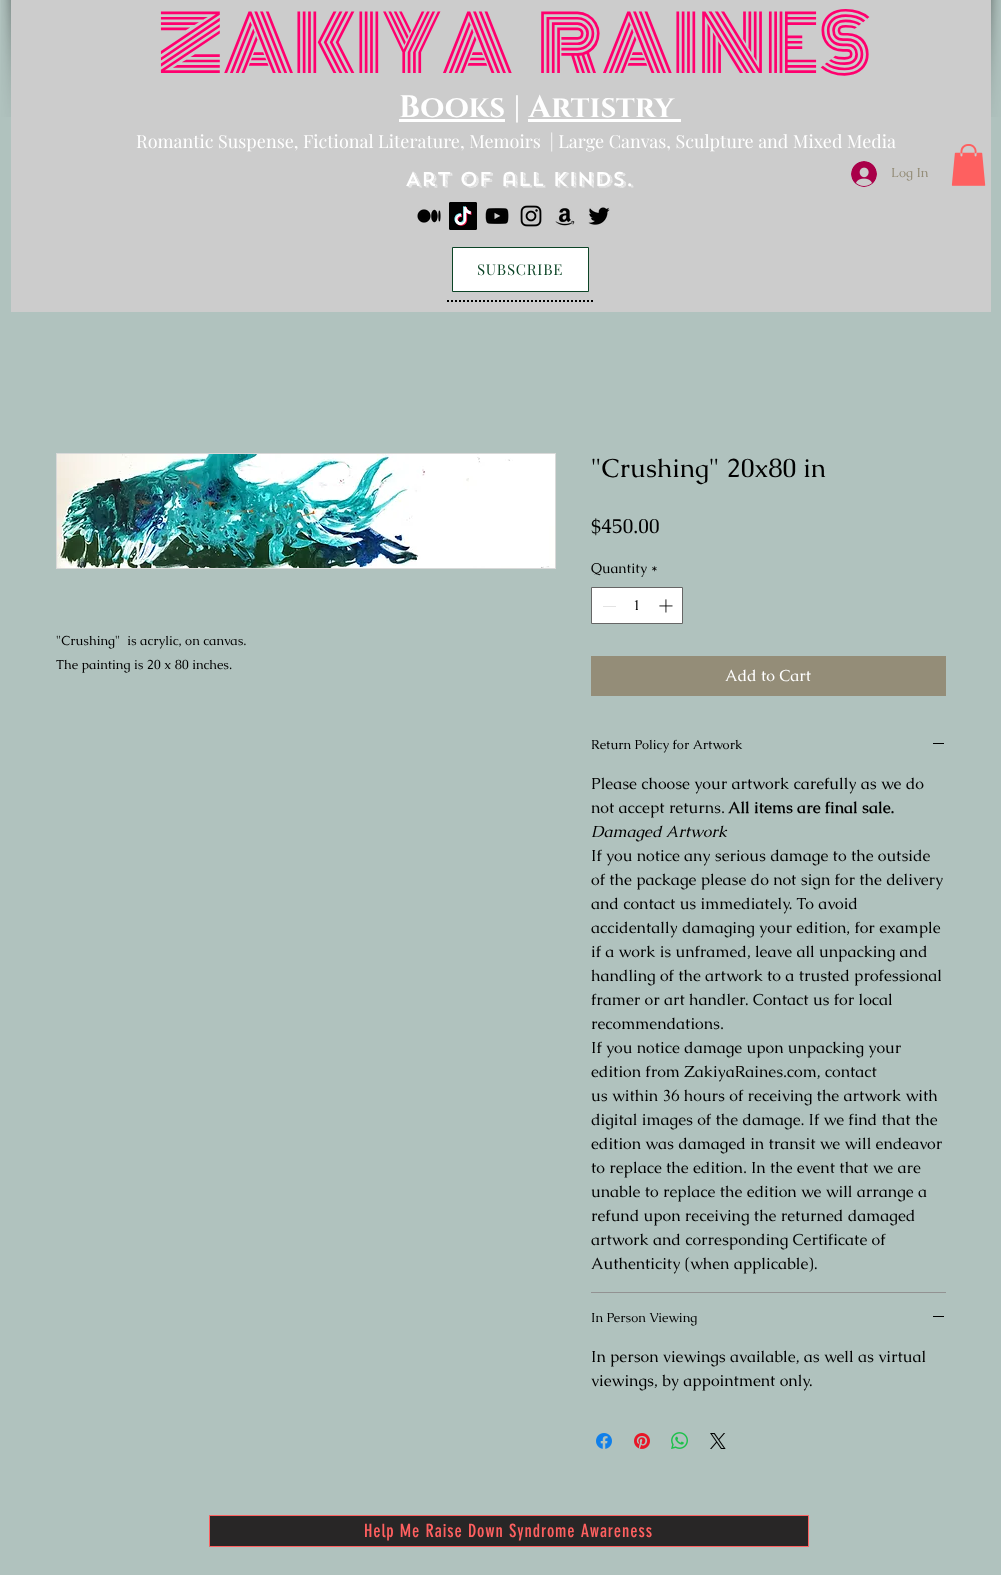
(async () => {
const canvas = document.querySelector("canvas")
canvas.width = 1001
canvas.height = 1575
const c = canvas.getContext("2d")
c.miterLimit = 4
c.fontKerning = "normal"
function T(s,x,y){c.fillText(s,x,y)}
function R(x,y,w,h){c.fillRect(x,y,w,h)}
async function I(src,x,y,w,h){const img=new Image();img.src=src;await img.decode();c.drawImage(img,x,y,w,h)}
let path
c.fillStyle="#b0c2be"
R(0,0,1001,1575)
await I("1.png",1,0,10,117)
c.fillStyle="#ccc"
R(11,0,980,312)
await I("2.png",991,0,10,117)
c.font="76px Monoton"
c.fillStyle="#ff006e"
T("ZAKIYA   RAINES",158,73)
c.fillStyle="#fff"
R(399,119,106,3)
c.font="bold 31px Cinzel"
T("Books | Artistry",399,117)
R(528,119,153,3)
c.font="18px Playfair Display"
T("Romantic Suspense, Fictional Literature, Memoirs  | Large Canvas, Sculpture and Mixed Media",136,148)
c.font="500 20px 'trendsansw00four'"
T("Art of all kinds.",405,186)
await I("3.png",851,161,26,26)
c.font="13px Caudex"
c.fillStyle="#948d78"
T("Log In",891,177)
await I("4.png",951,144,35,42)
await I("5.png",417,209,24,14)
await I("6.png",449,202,28,28)
await I("7.png",485,208,24,16)
await I("8.png",520,205,22,22)
await I("9.png",555,208,20,18)
await I("10.png",588,207,22,18)
c.fillStyle="#fff"
c.beginPath()
c.rect(452.5,247.5,136,44)
c.fill()
c.strokeStyle="#0c4426"
c.stroke()
c.letterSpacing="0.75px"
c.font="15px Playfair Display"
c.fillStyle="#0c4426"
T("SUBSCRIBE",477,275)
path = new Path2D("M447 301h146")
c.strokeStyle="#000"
c.lineWidth=2
c.setLineDash([2,2])
c.stroke(path)
c.strokeStyle="#d9d9d9"
c.lineWidth=1
c.setLineDash([])
c.strokeRect(56.5,453.5,499,115)
await I("11.png",57,454,498,114)
c.letterSpacing="0px"
c.font="13px Caudex"
c.fillStyle="#000"
T("\"Crushing\"  is acrylic, on canvas.",56,645)
T("The painting is 20 x 80 inches.",56,669)
c.font="26px Caudex"
T("\"Crushing\" 20x80 in",591,477)
c.font="20px Caudex"
T("$450.00",591,533)
c.font="14px Caudex"
T("Quantity *",591,573)
c.fillStyle="#fff"
c.beginPath()
c.rect(591.5,587.5,91,36)
c.fill()
c.strokeStyle="#666"
c.stroke()
c.fillStyle="#e3e3e3"
R(603,606,13,1)
c.fillStyle="#000"
T("1",633,610)
await I("12.png",659,599,14,14)
c.fillStyle="#948d78"
R(591,656,355,40)
c.font="16px Caudex"
c.fillStyle="#fff"
T("Add to Cart",725,681)
c.fillStyle="#929292"
R(591,1292,355,1)
c.font="13px Caudex"
c.fillStyle="#000"
T("Return Policy for Artwork",591,749)
R(933,743,11,1)
c.font="16px Caudex"
T("Please choose your artwork carefully as we do",591,789)
T("not accept returns.",591,813)
c.font="bold 16px Caudex"
T("All items are final sale.",728,813)
c.font="italic 16px Caudex"
T("Damaged Artwork",591,837)
c.font="16px Caudex"
T("If you notice any serious damage to the outside",591,861)
T("of the package please do not sign for the delivery",591,885)
T("and contact us immediately. To avoid",591,909)
T("accidentally damaging your edition, for example",591,933)
T("if a work is unframed, leave all unpacking and",591,957)
T("handling of the artwork to a trusted professional",591,981)
T("framer or art handler. Contact us for local",591,1005)
T("recommendations.",591,1029)
T("If you notice damage upon unpacking your",591,1053)
T("edition from ZakiyaRaines.com, contact",591,1077)
T("us within 36 hours of receiving the artwork with",591,1101)
T("digital images of the damage. If we find that the",591,1125)
T("edition was damaged in transit we will endeavor",591,1149)
T("to replace the edition. In the event that we are",591,1173)
T("unable to replace the edition we will arrange a",591,1197)
T("refund upon receiving the returned damaged",591,1221)
T("artwork and corresponding Certificate of",591,1245)
T("Authenticity (when applicable).",591,1269)
c.font="13px Caudex"
T("In Person Viewing",591,1322)
R(933,1316,11,1)
c.font="16px Caudex"
T("In person viewings available, as well as virtual",591,1362)
T("viewings, by appointment only.",591,1386)
await I("13.png",596,1433,16,16)
await I("14.png",634,1433,16,16)
await I("15.png",671,1432,17,17)
await I("16.png",710,1433,16,16)
c.fillStyle="#282626"
c.beginPath()
c.rect(209.5,1515.5,599,31)
c.fill()
c.strokeStyle="#fe6060"
c.stroke()
c.letterSpacing="0.9px"
c.font="18px 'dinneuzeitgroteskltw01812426'"
c.fillStyle="#fe6060"
T("Help Me Raise Down Syndrome Awareness",364,1537)
})()
